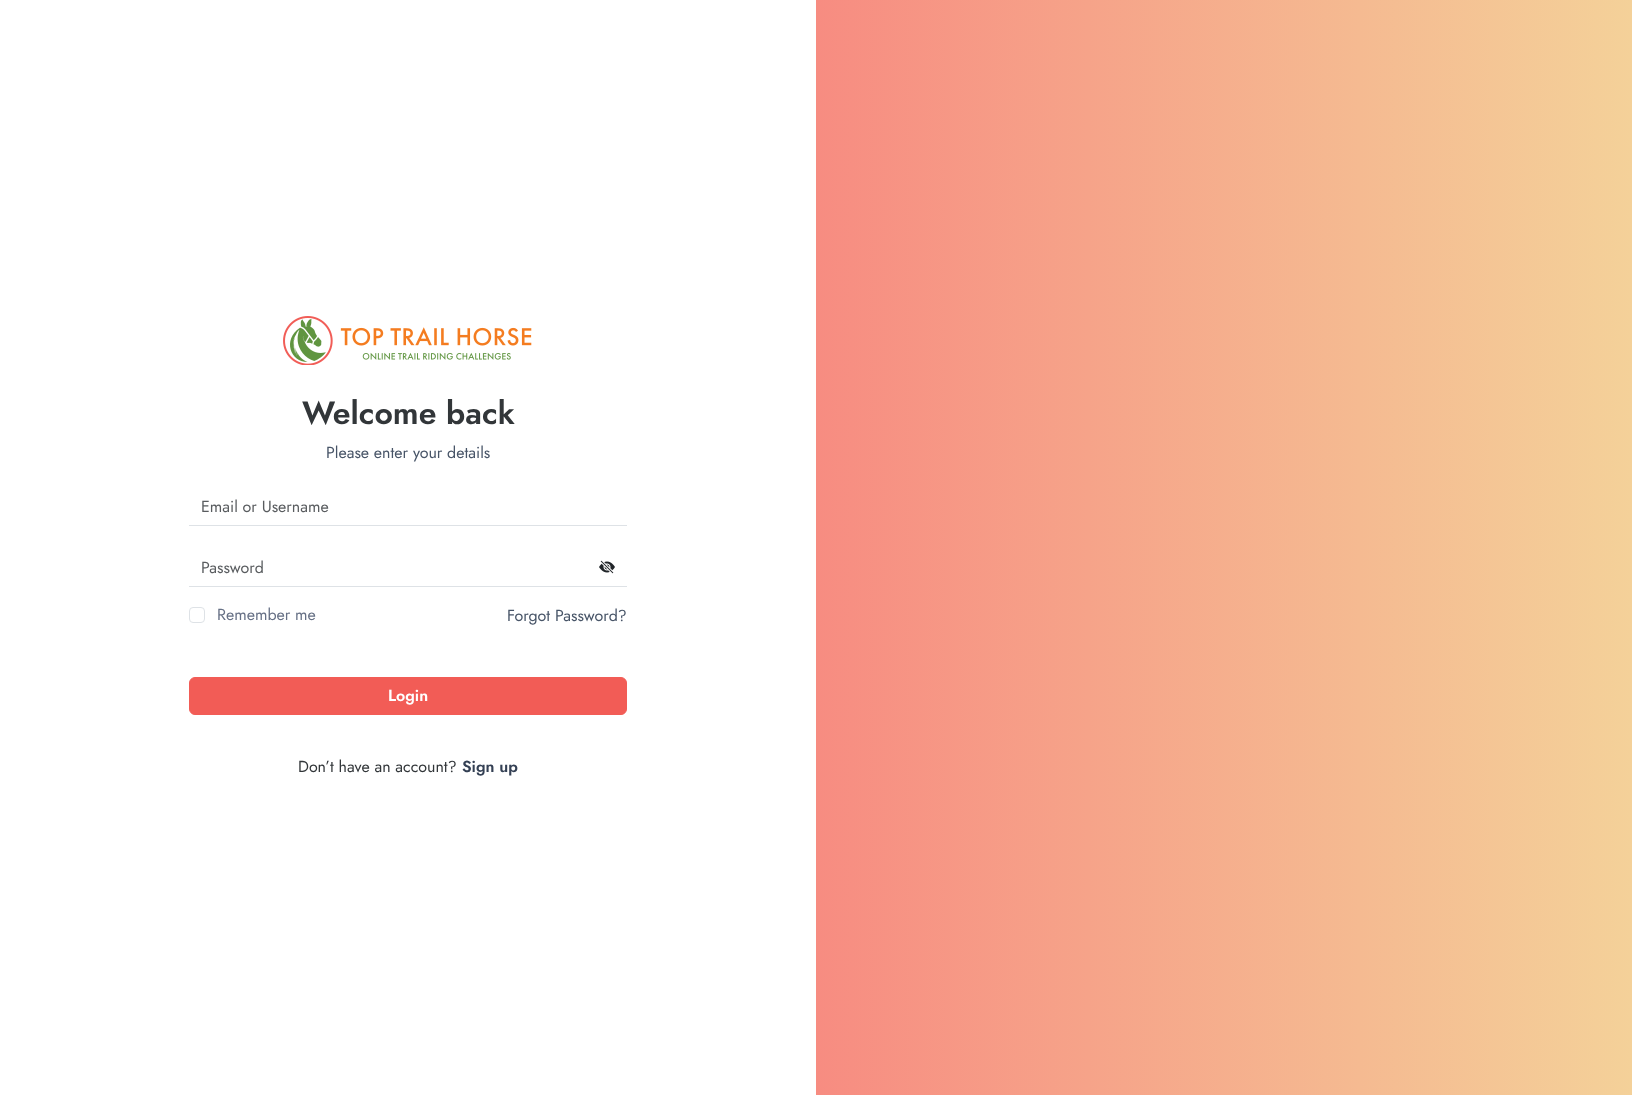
(async () => {
const canvas = document.querySelector("canvas")
canvas.width = 1632
canvas.height = 1095
const c = canvas.getContext("2d")
c.miterLimit = 4
c.fontKerning = "normal"
function T(s,x,y){c.fillText(s,x,y)}
function R(x,y,w,h){c.fillRect(x,y,w,h)}
async function I(src,x,y,w,h){const img=new Image();img.src=src;await img.decode();c.drawImage(img,x,y,w,h)}
let gradient
c.fillStyle="#fff"
R(0,0,1632,1095)
await I("1.png",283,316,249,49)
c.font="600 32px Jost"
c.fillStyle="#323639"
T("Welcome back",302,424)
c.font="16px Jost"
c.fillStyle="#475467"
T("Please enter your details",326,458)
c.fillStyle="#dee2e6"
R(189,525,438,1)
c.fillStyle="#595c5f"
T("Email or Username",201,512)
c.fillStyle="#dee2e6"
R(189,586,438,1)
await I("2.png",599,560,16,14)
c.fillStyle="#595c5f"
T("Password",201,573)
c.beginPath()
c.roundRect(189.5,607.5,15,15,3.5)
c.strokeStyle="#dee2e6"
c.stroke()
c.fillStyle="#667085"
T("Remember me",217,620)
c.fillStyle="#475467"
T("Forgot Password?",507,621)
c.fillStyle="#f25c56"
c.beginPath()
c.roundRect(189.5,677.5,437,37,5.5)
c.fill()
c.strokeStyle="#f25c56"
c.stroke()
c.font="600 16px Jost"
c.fillStyle="#fff"
T("Login",388,701)
c.font="16px Jost"
c.fillStyle="#323639"
T("Don’t have an account?",298,772)
c.font="600 16px Jost"
c.fillStyle="#344054"
T("Sign up",462,772)
gradient = c.createLinearGradient(816,548,1632,548)
gradient.addColorStop(0,"#f78c81")
gradient.addColorStop(1,"#f4d199")
c.fillStyle = gradient
R(816,0,816,1095)
})()
